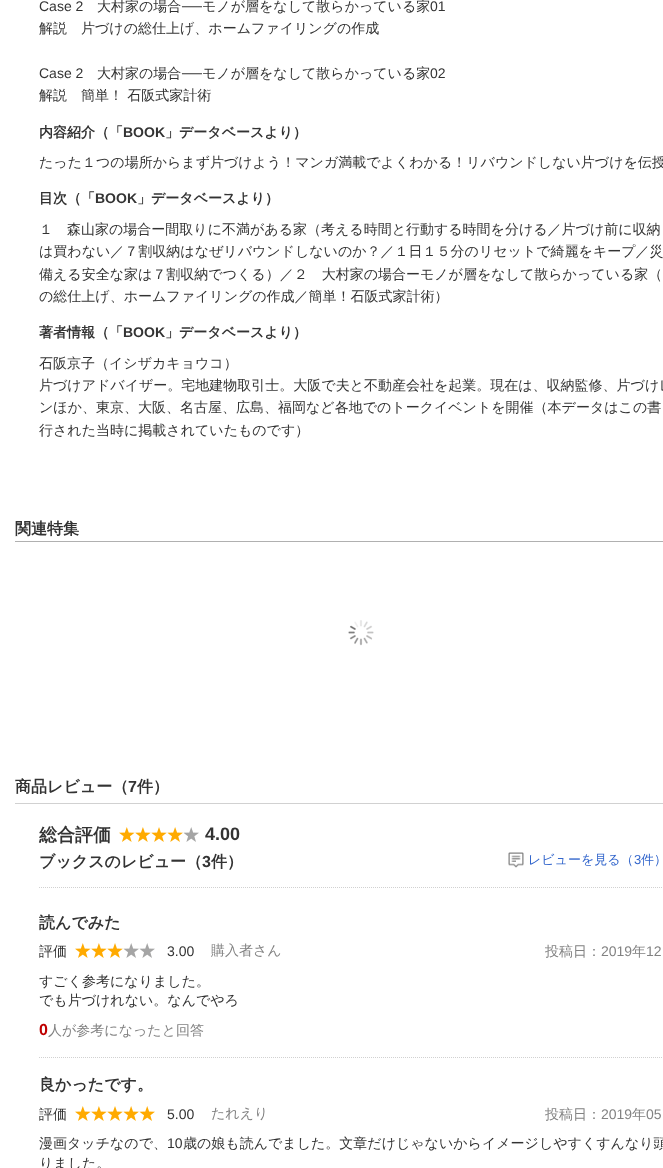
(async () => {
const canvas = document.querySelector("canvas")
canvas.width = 663
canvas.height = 1168
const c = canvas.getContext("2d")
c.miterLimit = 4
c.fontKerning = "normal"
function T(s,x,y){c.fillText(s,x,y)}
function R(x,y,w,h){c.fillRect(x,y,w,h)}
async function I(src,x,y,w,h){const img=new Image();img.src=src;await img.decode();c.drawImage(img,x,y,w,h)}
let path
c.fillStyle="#fff"
R(0,0,663,1168)
c.font="14px Liberation Sans"
c.fillStyle="#333"
T("Case 2",39,11)
c.font="500 14px WenQuanYi Zen Hei"
T("大村家の場合",97,11)
c.font="14px Liberation Sans"
T("──",182,11)
c.font="500 14px WenQuanYi Zen Hei"
T("モノが層をなして散らかっている家",202,11)
c.font="14px Liberation Sans"
T("01",430,11)
c.font="500 14px WenQuanYi Zen Hei"
T("解説　片づけの総仕上げ、ホームファイリングの作成",39,33)
c.font="14px Liberation Sans"
T("Case 2",39,78)
c.font="500 14px WenQuanYi Zen Hei"
T("大村家の場合",97,78)
c.font="14px Liberation Sans"
T("──",182,78)
c.font="500 14px WenQuanYi Zen Hei"
T("モノが層をなして散らかっている家",202,78)
c.font="14px Liberation Sans"
T("02",430,78)
c.font="500 14px WenQuanYi Zen Hei"
T("解説　簡単！ 石阪式家計術",39,100)
c.font="bold 14px WenQuanYi Zen Hei"
T("内容紹介（「",39,137)
c.font="bold 14px Liberation Sans"
T("BOOK",123,137)
c.font="bold 14px WenQuanYi Zen Hei"
T("」データベースより）",165,137)
c.font="500 14px WenQuanYi Zen Hei"
T("たった１つの場所からまず片づけよう！マンガ満載でよくわかる！リバウンドしない片づけを伝授",39,167)
c.font="bold 14px WenQuanYi Zen Hei"
T("目次（「",39,203)
c.font="bold 14px Liberation Sans"
T("BOOK",95,203)
c.font="bold 14px WenQuanYi Zen Hei"
T("」データベースより）",137,203)
c.font="500 14px WenQuanYi Zen Hei"
T("１　森山家の場合ー間取りに不満がある家（考える時間と行動する時間を分ける／片づけ前に収納",39,234)
T("は買わない／７割収納はなぜリバウンドしないのか？／１日１５分のリセットで綺麗をキープ／災",39,256)
T("備える安全な家は７割収納でつくる）／２　大村家の場合ーモノが層をなして散らかっている家（",39,279)
T("の総仕上げ、ホームファイリングの作成／簡単！石阪式家計術）",39,301)
c.font="bold 14px WenQuanYi Zen Hei"
T("著者情報（「",39,337)
c.font="bold 14px Liberation Sans"
T("BOOK",123,337)
c.font="bold 14px WenQuanYi Zen Hei"
T("」データベースより）",165,337)
c.font="500 14px WenQuanYi Zen Hei"
T("石阪京子（イシザカキョウコ）",39,368)
T("片づけアドバイザー。宅地建物取引士。大阪で夫と不動産会社を起業。現在は、収納監修、片づけレ",39,390)
T("ンほか、東京、大阪、名古屋、広島、福岡など各地でのトークイベントを開催（本データはこの書",39,412)
T("行された当時に掲載されていたものです）",39,435)
c.fillStyle="#b0b0b0"
R(15,541,648,1)
c.font="bold 16px WenQuanYi Zen Hei"
c.fillStyle="#333"
T("関連特集",15,534)
await I("1.png",348,620,26,26)
c.fillStyle="#d1d1d1"
R(15,803,648,1)
c.fillStyle="#333"
T("商品レビュー（",15,792)
c.font="bold 16px Liberation Sans"
T("7",128,792)
c.font="bold 16px WenQuanYi Zen Hei"
T("件）",137,792)
c.font="bold 18px WenQuanYi Zen Hei"
T("総合評価",39,841)
await I("2.png",119,827,80,15)
c.font="bold 18px Liberation Sans"
T("4.00",205,840)
path = new Path2D("M39 887.5h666")
c.strokeStyle="#d1d1d1"
c.setLineDash([1,1])
c.stroke(path)
c.font="bold 16px WenQuanYi Zen Hei"
T("ブックスのレビュー（",39,867)
c.font="bold 16px Liberation Sans"
T("3",202,867)
c.font="bold 16px WenQuanYi Zen Hei"
T("件）",211,867)
await I("3.png",508,852,16,16)
c.font="500 13px WenQuanYi Zen Hei"
c.fillStyle="#36c"
T("レビューを見る（",528,864)
c.font="13px Liberation Sans"
T("3",634,864)
c.font="500 13px WenQuanYi Zen Hei"
T("件）",641,864)
c.font="bold 16px WenQuanYi Zen Hei"
c.fillStyle="#333"
T("読んでみた",39,928)
c.font="500 14px WenQuanYi Zen Hei"
T("評価",39,956)
await I("4.png",75,943,80,15)
c.font="14px Liberation Sans"
T("3.00",167,956)
c.font="500 14px WenQuanYi Zen Hei"
c.fillStyle="#828282"
T("購入者さん",211,955)
T("投稿日：",545,956)
c.font="14px Liberation Sans"
T("2019",601,956)
c.font="500 14px WenQuanYi Zen Hei"
T("年",632,956)
c.font="14px Liberation Sans"
T("12",646,956)
c.font="500 14px WenQuanYi Zen Hei"
c.fillStyle="#333"
T("すごく参考になりました。",39,986)
T("でも片づけれない。なんでやろ",39,1005)
c.font="bold 16px Liberation Sans"
c.fillStyle="#bf0000"
T("0",39,1035)
c.font="500 14px WenQuanYi Zen Hei"
c.fillStyle="#828282"
T("人が参考になったと回答",48,1035)
path = new Path2D("M39 1057.5h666")
c.stroke(path)
c.font="bold 16px WenQuanYi Zen Hei"
c.fillStyle="#333"
T("良かったです。",39,1090)
c.font="500 14px WenQuanYi Zen Hei"
T("評価",39,1119)
await I("5.png",75,1106,80,15)
c.font="14px Liberation Sans"
T("5.00",167,1119)
c.font="500 14px WenQuanYi Zen Hei"
c.fillStyle="#828282"
T("たれえり",211,1118)
T("投稿日：",545,1119)
c.font="14px Liberation Sans"
T("2019",601,1119)
c.font="500 14px WenQuanYi Zen Hei"
T("年",632,1119)
c.font="14px Liberation Sans"
T("05",646,1119)
c.font="500 14px WenQuanYi Zen Hei"
c.fillStyle="#333"
T("漫画タッチなので、",39,1148)
c.font="14px Liberation Sans"
T("10",167,1148)
c.font="500 14px WenQuanYi Zen Hei"
T("歳の娘も読んでました。文章だけじゃないからイメージしやすくすんなり頭",183,1148)
T("りました。",39,1168)
})()
